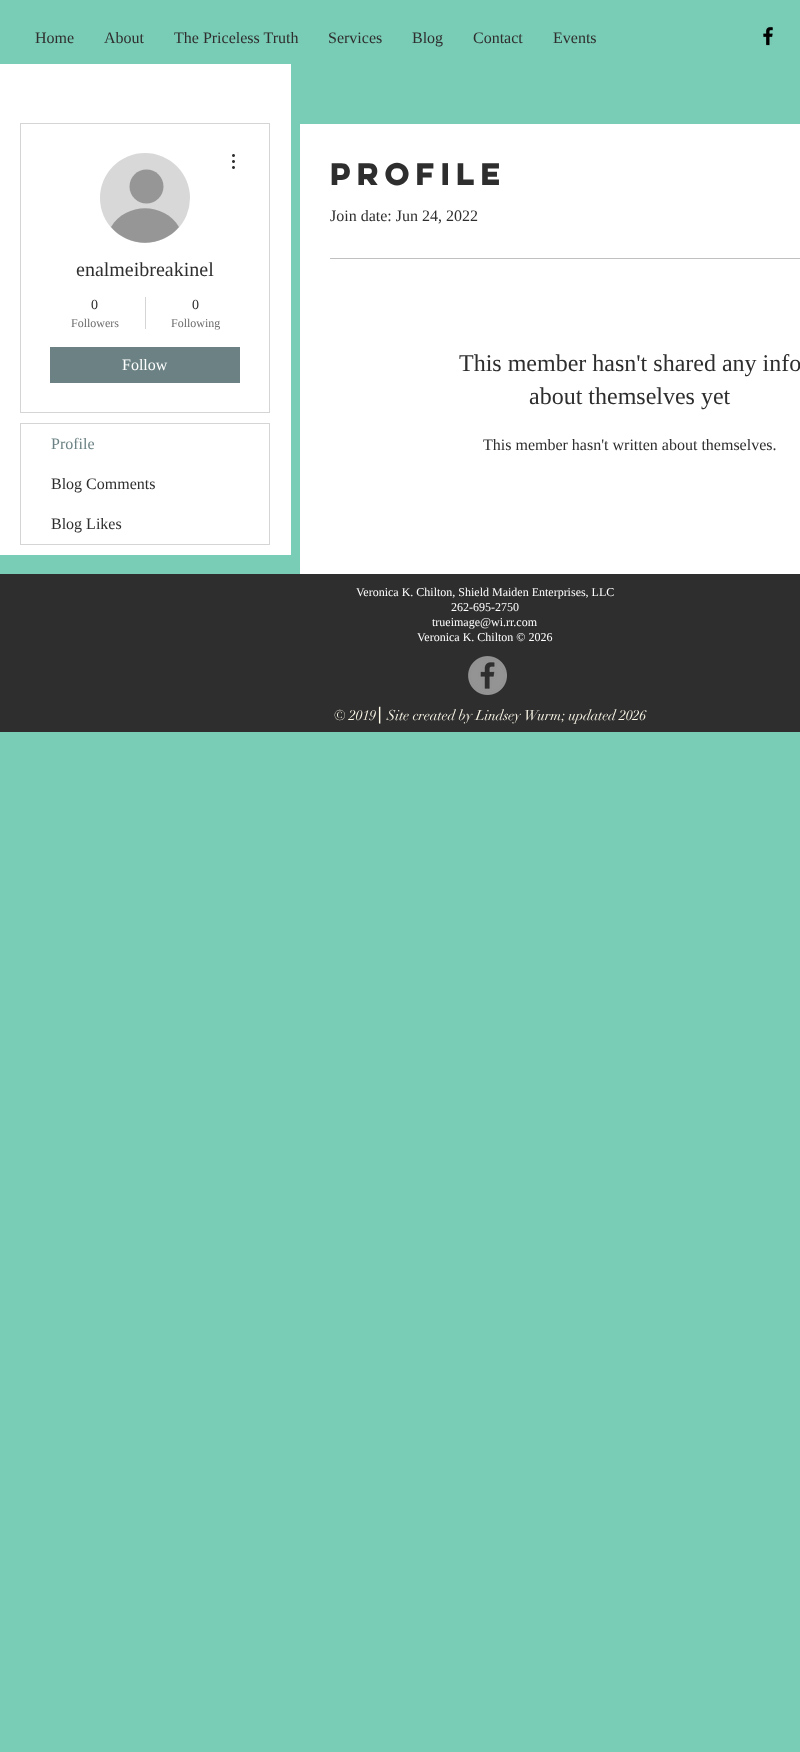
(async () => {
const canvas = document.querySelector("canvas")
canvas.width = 800
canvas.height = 1752
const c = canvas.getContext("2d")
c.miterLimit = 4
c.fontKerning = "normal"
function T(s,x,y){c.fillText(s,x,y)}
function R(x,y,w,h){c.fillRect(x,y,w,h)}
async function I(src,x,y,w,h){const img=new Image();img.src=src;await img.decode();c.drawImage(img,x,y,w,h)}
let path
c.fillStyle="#79ccb5"
R(0,0,800,1752)
c.font="16px Liberation Serif"
c.fillStyle="#2f2e2e"
T("Home",35,43)
T("About",104,43)
T("The Priceless Truth",174,43)
T("Services",328,43)
T("Blog",412,43)
T("Contact",473,43)
T("Events",553,43)
await I("1.png",763,26,10,20)
c.fillStyle="#fff"
R(0,64,291,491)
c.strokeStyle="#d5d5d5"
c.strokeRect(20.5,123.5,249,289)
c.fillStyle="#d8d8d8"
c.beginPath()
c.arc(145,198,45,0,7)
c.fill()
c.fillStyle="#969696"
c.beginPath()
c.arc(146.5,186.5,17,0,7)
c.fill()
path = new Path2D("M179 227c-18 21-50 21-68 0c15-25 53-25 68 0z")
c.fill(path)
await I("2.png",232,154,3,15)
c.font="20px Liberation Serif"
c.fillStyle="#2f2e2e"
T("enalmeibreakinel",76,276)
c.font="14px Liberation Serif"
T("0",91,309)
c.font="12px Liberation Serif"
c.fillStyle="#6d6d6d"
T("Followers",71,327)
c.fillStyle="#d5d5d5"
R(145,297,1,32)
c.font="14px Liberation Serif"
c.fillStyle="#2f2e2e"
T("0",192,309)
c.font="12px Liberation Serif"
c.fillStyle="#6d6d6d"
T("Following",171,327)
c.fillStyle="#6b8183"
R(50,347,190,36)
c.font="16px Liberation Serif"
c.fillStyle="#fff"
T("Follow",122,370)
c.strokeRect(20.5,423.5,249,121)
c.fillStyle="#6b8183"
T("Profile",51,449)
c.fillStyle="#2f2e2e"
T("Blog Comments",51,489)
T("Blog Likes",51,529)
c.fillStyle="#fff"
R(300,124,500,450)
c.font="bold 28px 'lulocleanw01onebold'"
c.fillStyle="#2f2e2e"
T("Profile",330,185)
c.font="16px Liberation Serif"
T("Join date: Jun 24, 2022",330,221)
c.fillStyle="#c1c0c0"
R(330,258,470,1)
c.font="24px Liberation Serif"
c.fillStyle="#2f2e2e"
T("This member hasn't shared any info",459,371)
T("about themselves yet",529,404)
c.font="16px Liberation Serif"
T("This member hasn't written about themselves.",483,450)
R(0,574,800,158)
c.font="12px Liberation Serif"
c.fillStyle="#fff"
T("Veronica K. Chilton, Shield Maiden Enterprises, LLC",356,596)
T("262-695-2750",451,611)
T("trueimage@wi.rr.com",432,626)
T("Veronica K. Chilton © 2026",417,641)
await I("3.png",468,656,39,39)
c.font="14px didot"
c.fillStyle="#fffcec"
T("© 2019",334,720)
c.font="14px DejaVu Sans"
T("⎮",376,720)
c.font="14px didot"
T("Site created by Lindsey Wurm; updated 2026",387,720)
})()
